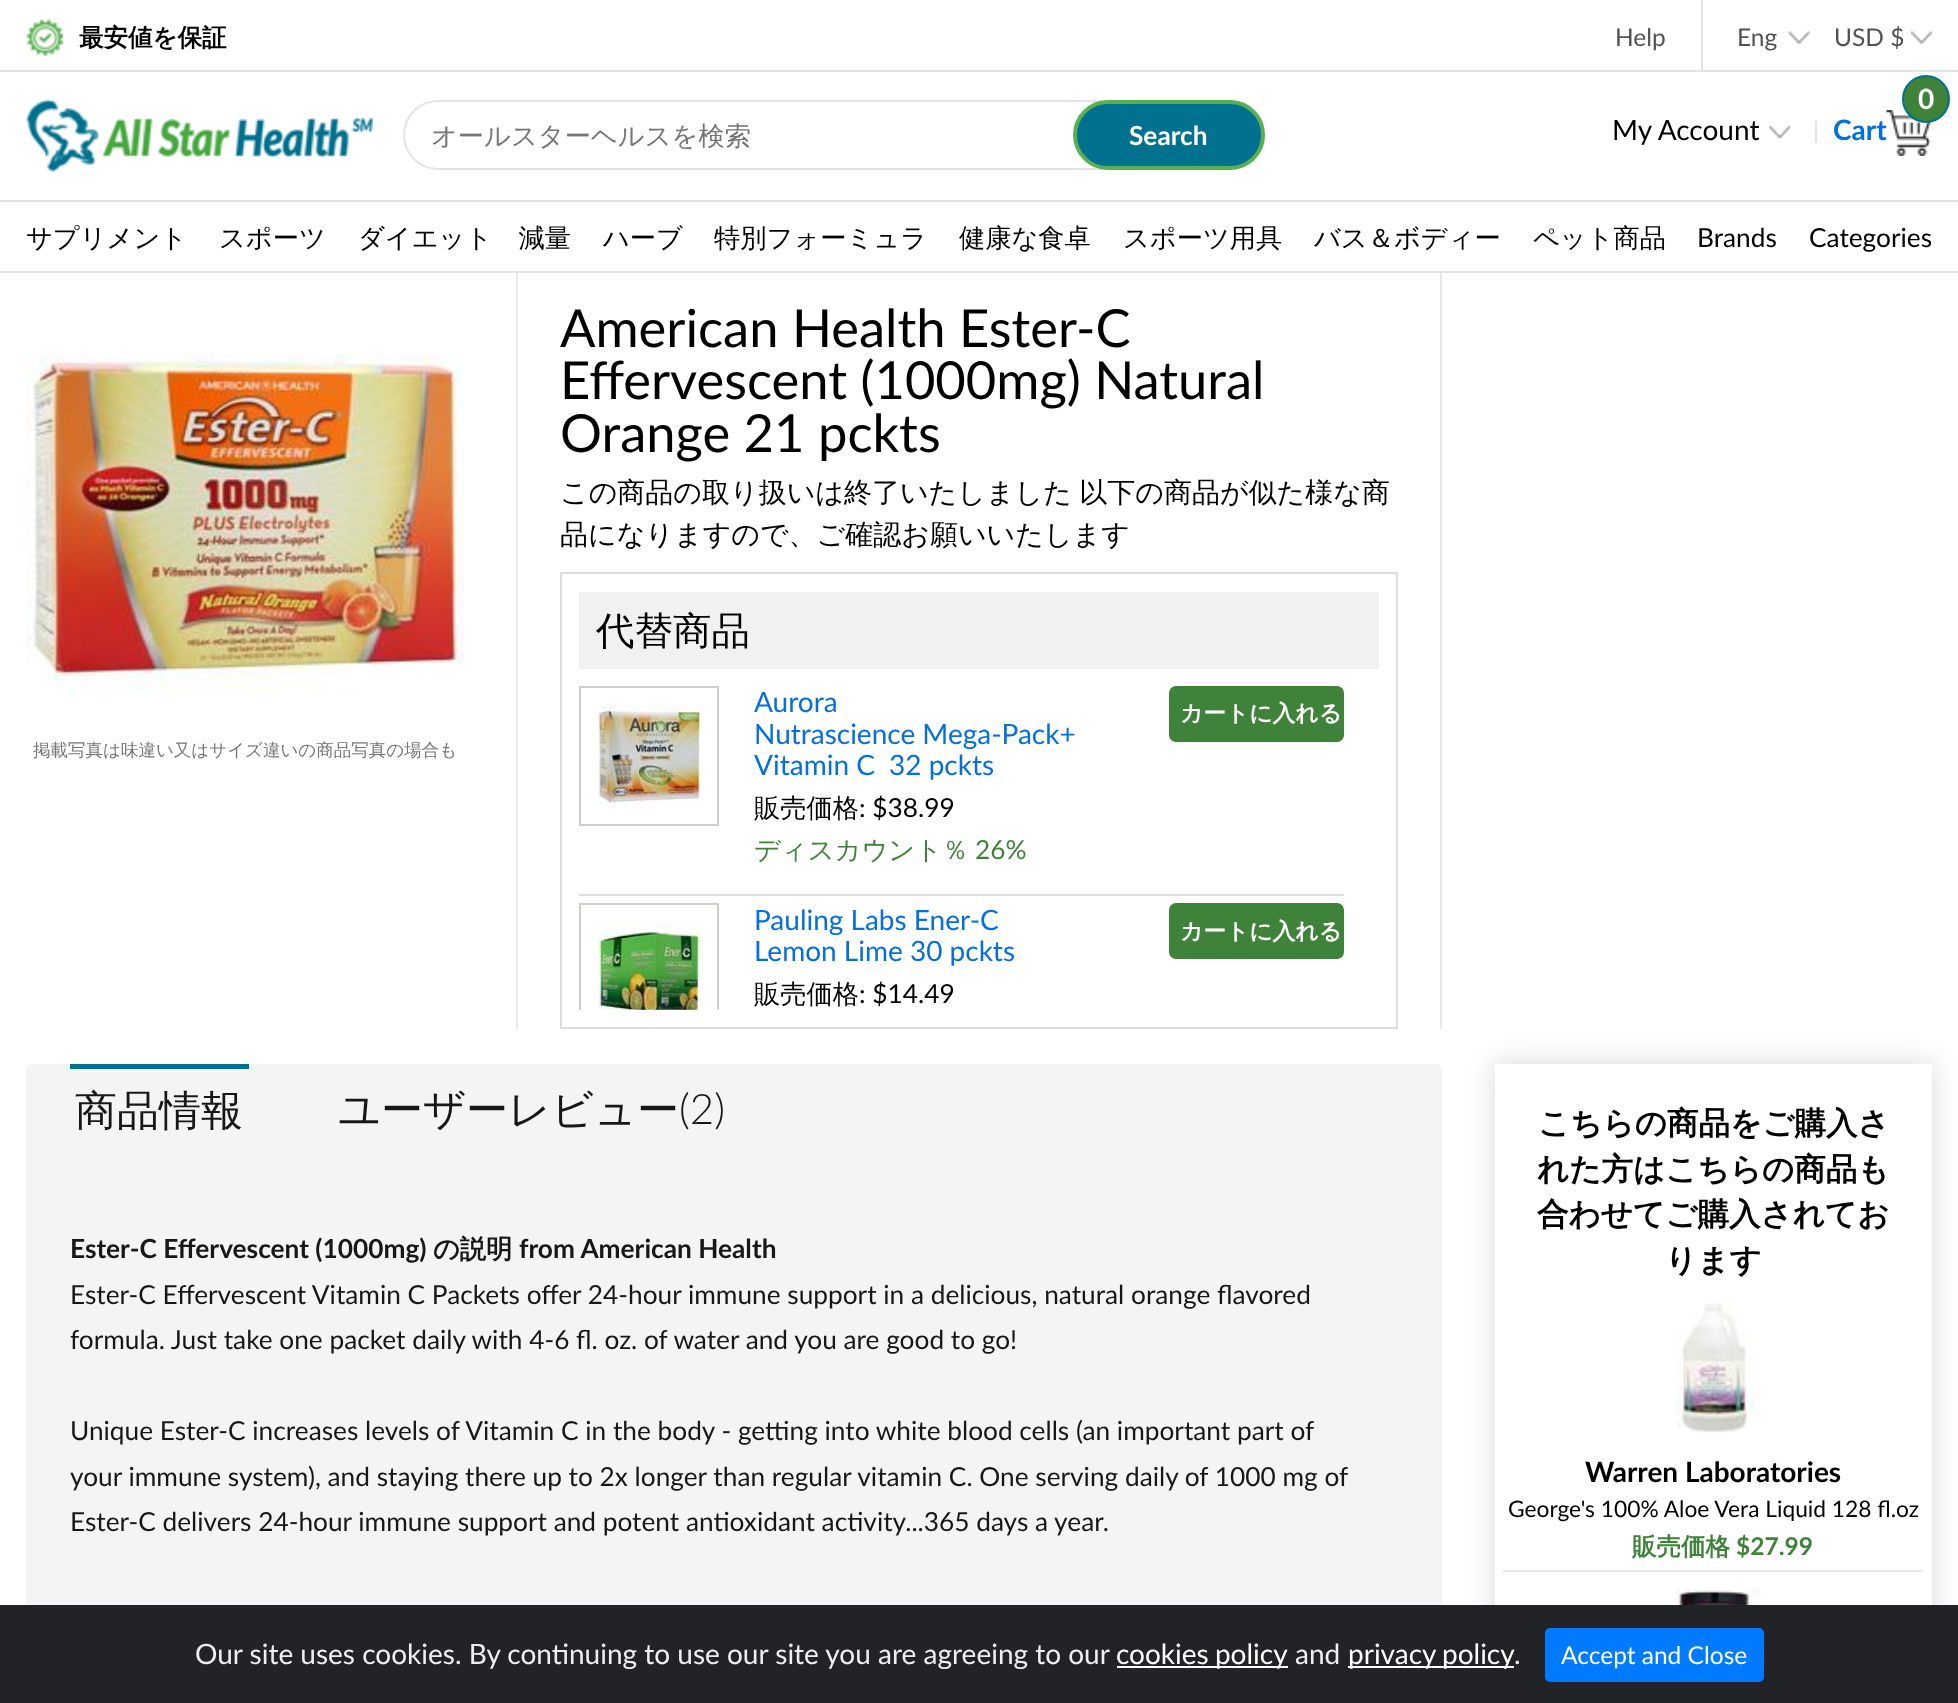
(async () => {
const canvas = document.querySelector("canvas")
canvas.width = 1958
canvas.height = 1703
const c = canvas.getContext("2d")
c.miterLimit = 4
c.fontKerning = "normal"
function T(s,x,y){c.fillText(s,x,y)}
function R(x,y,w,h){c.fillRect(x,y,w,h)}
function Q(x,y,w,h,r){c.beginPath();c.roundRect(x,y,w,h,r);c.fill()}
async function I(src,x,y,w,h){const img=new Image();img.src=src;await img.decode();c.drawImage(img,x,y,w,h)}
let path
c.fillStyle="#fff"
R(0,0,1958,1703)
await I("1.png",26,19,37,37)
c.font="bold 24.5px WenQuanYi Zen Hei"
c.fillStyle="#000"
T("最安値を保証",79,46)
c.fillStyle="#e4e4e4"
R(1701,0,2,70)
c.font="24.5px Lato"
c.fillStyle="#525252"
T("Help",1615,46)
T("Eng",1737,46)
await I("2.png",1788,31,22,13)
T("USD $",1834,46)
await I("3.png",1911,31,21,13)
c.fillStyle="#e4e4e4"
R(0,70,1958,2)
R(0,200,1958,2)
await I("4.png",26,99,347,73)
c.beginPath()
c.roundRect(404,101,860,68,34)
c.strokeStyle="#e4e4e4"
c.lineWidth=2
c.stroke()
c.font="500 26.25px WenQuanYi Zen Hei"
c.fillStyle="#757575"
T("オールスターヘルスを検索",431,145)
c.fillStyle="#00728f"
c.beginPath()
c.roundRect(1075,102,188,66,33)
c.fill()
c.strokeStyle="#59b052"
c.lineWidth=4
c.stroke()
c.font="bold 26.25px Lato"
c.fillStyle="#fff"
T("Search",1129,145)
c.font="28px Lato"
c.fillStyle="#000"
T("My Account",1612,140)
await I("5.png",1769,126,22,13)
c.fillStyle="#e4e4e4"
R(1815,121,2,21)
c.font="bold 28px Lato"
c.fillStyle="#006fe6"
T("Cart",1833,140)
await I("6.png",1886,110,45,46)
c.fillStyle="#3f833a"
c.beginPath()
c.arc(1926,99,23,0,7)
c.fill()
c.strokeStyle="#00728f"
c.lineWidth=2
c.stroke()
c.fillStyle="#fff"
T("0",1918,109)
c.fillStyle="#e4e4e4"
R(0,271,1958,2)
c.font="500 26.25px WenQuanYi Zen Hei"
c.fillStyle="#000"
T("サプリメント",26,247)
T("スポーツ",219,247)
T("ダイエット　減量",358,247)
T("ハーブ",603,247)
T("特別フォーミュラ",714,247)
T("健康な食卓",959,247)
T("スポーツ用具",1123,247)
T("バス＆ボディー",1314,247)
T("ペット商品",1533,247)
c.font="26.25px Lato"
T("Brands",1697,247)
T("Categories",1809,247)
await I("7.png",26,354,438,338)
c.font="500 17.5px WenQuanYi Zen Hei"
c.fillStyle="#757575"
T("掲載写真は味違い又はサイズ違いの商品写真の場合も",33,756)
c.fillStyle="#e8e8e8"
R(516,273,2,756)
c.font="52.5px Lato"
c.fillStyle="#000"
T("American Health Ester-C",560,347)
T("Effervescent (1000mg) Natural",560,399)
T("Orange 21 pckts",560,452)
c.fillStyle="#e8e8e8"
R(1440,273,2,756)
c.wordSpacing="-1px"
c.font="500 28px WenQuanYi Zen Hei"
c.fillStyle="#000"
T("この商品の取り扱いは終了いたしました 以下の商品が似た様な商",560,502)
c.wordSpacing="0px"
T("品になりますので、ご確認お願いいたします",560,544)
c.strokeStyle="#ddd"
c.strokeRect(561,573,836,455)
c.fillStyle="#f1f1f1"
R(579,592,800,77)
c.font="500 38.5px WenQuanYi Zen Hei"
c.fillStyle="#000"
T("代替商品",596,644)
c.fillStyle="#ddd"
R(579,894,765,2)
c.strokeStyle="#cfceca"
c.strokeRect(580,687,138,138)
await I("8.png",598,705,102,100)
c.font="28px Lato"
c.fillStyle="#066fe0"
T("Aurora",754,712)
T("Nutrascience Mega-Pack+",754,744)
T("Vitamin C",754,775)
T("32 pckts",889,775)
c.font="500 26.25px WenQuanYi Zen Hei"
c.fillStyle="#000"
T("販売価格",754,817)
c.font="26.25px Lato"
T(": $38.99",859,817)
c.font="500 26.25px WenQuanYi Zen Hei"
c.fillStyle="#3f833a"
T("ディスカウント％",754,859)
c.font="26.25px Lato"
T("26%",975,859)
c.beginPath()
c.roundRect(1170,687,173,54,6)
c.fill()
c.strokeStyle="#3f833a"
c.stroke()
c.font="bold 22.75px WenQuanYi Zen Hei"
c.fillStyle="#fff"
T("カートに入れる",1180,721)
c.save()
c.beginPath()
c.rect(579,686,800,324)
c.clip()
c.strokeStyle="#cfceca"
c.strokeRect(580,904,138,138)
c.restore()
await I("9.png",598,922,102,88)
c.font="28px Lato"
c.fillStyle="#066fe0"
T("Pauling Labs Ener-C",754,930)
T("Lemon Lime 30 pckts",754,961)
c.font="500 26.25px WenQuanYi Zen Hei"
c.fillStyle="#000"
T("販売価格",754,1003)
c.font="26.25px Lato"
T(": $14.49",859,1003)
c.fillStyle="#3f833a"
c.beginPath()
c.roundRect(1170,904,173,54,6)
c.fill()
c.stroke()
c.font="bold 22.75px WenQuanYi Zen Hei"
c.fillStyle="#fff"
T("カートに入れる",1180,939)
c.fillStyle="#f4f4f4"
Q(26,1064,1416,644,5)
c.fillStyle="#00728f"
R(70,1064,179,5)
c.font="500 42px WenQuanYi Zen Hei"
c.fillStyle="#171717"
T("商品情報",75,1125)
T("ユーザーレビュー",338,1124)
c.font="300 42px Lato"
T("(2)",679,1124)
c.font="bold 26.25px Lato"
T("Ester-C Effervescent (1000mg)",70,1258)
c.font="bold 26.25px WenQuanYi Zen Hei"
T("の説明",433,1258)
c.font="bold 26.25px Lato"
T("from American Health",519,1258)
c.font="26.25px Lato"
T("Ester-C Effervescent Vitamin C Packets offer 24-hour immune support in a delicious, natural orange flavored",70,1304)
T("formula. Just take one packet daily with 4-6 fl. oz. of water and you are good to go!",70,1349)
T("Unique Ester-C increases levels of Vitamin C in the body - getting into white blood cells (an important part of",70,1440)
T("your immune system), and staying there up to 2x longer than regular vitamin C. One serving daily of 1000 mg of",70,1486)
T("Ester-C delivers 24-hour immune support and potent antioxidant activity...365 days a year.",70,1531)
c.save()
path = new Path2D("M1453 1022h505v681h-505zm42 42h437v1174h-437z")
c.clip(path,"evenodd")
c.fillStyle="#ddd"
c.filter="blur(13px)"
c.beginPath()
c.rect(1493,1062,441,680)
c.fill()
c.filter="none"
c.restore()
c.font="bold 31.5px WenQuanYi Zen Hei"
c.fillStyle="#000"
T("こちらの商品をご購入さ",1538,1134)
T("れた方はこちらの商品も",1537,1180)
T("合わせてご購入されてお",1537,1225)
T("ります",1665,1271)
await I("10.png",1676,1302,84,131)
c.font="bold 28px Lato"
T("Warren Laboratories",1585,1482)
c.font="22.75px Lato"
T("George's 100% Aloe Vera Liquid 128 fl.oz",1508,1517)
c.font="bold 24.5px WenQuanYi Zen Hei"
c.fillStyle="#3f833a"
T("販売価格",1632,1555)
c.font="bold 24.5px Lato"
T("$27.99",1736,1555)
c.fillStyle="#e7e7e7"
R(1503,1570,420,2)
await I("11.png",1675,1589,86,16)
c.fillStyle="#212327"
R(0,1605,1958,98)
c.font="28px Lato"
c.fillStyle="#ecf0f1"
T("Our site uses cookies. By continuing to use our site you are agreeing to our",195,1664)
c.fillStyle="#fff"
R(1117,1666,171,2)
c.wordSpacing="-1px"
T("cookies policy",1116,1664)
c.wordSpacing="0px"
c.fillStyle="#ecf0f1"
T("and",1295,1664)
c.fillStyle="#fff"
R(1348,1666,166,2)
c.wordSpacing="-1px"
T("privacy policy",1348,1664)
c.wordSpacing="0px"
c.fillStyle="#ecf0f1"
T(".",1514,1664)
c.fillStyle="#007bff"
c.beginPath()
c.roundRect(1546,1629,217,52,4)
c.fill()
c.strokeStyle="#007bff"
c.stroke()
c.font="24.5px Lato"
c.fillStyle="#fff"
T("Accept and Close",1561,1664)
})()
